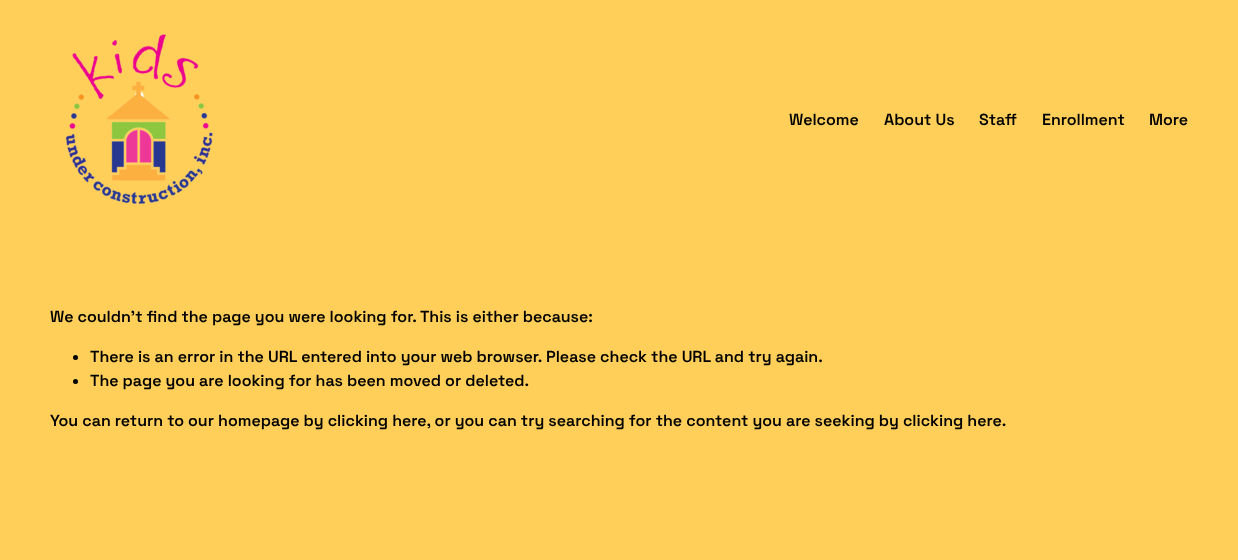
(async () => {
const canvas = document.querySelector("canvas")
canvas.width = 1238
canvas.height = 560
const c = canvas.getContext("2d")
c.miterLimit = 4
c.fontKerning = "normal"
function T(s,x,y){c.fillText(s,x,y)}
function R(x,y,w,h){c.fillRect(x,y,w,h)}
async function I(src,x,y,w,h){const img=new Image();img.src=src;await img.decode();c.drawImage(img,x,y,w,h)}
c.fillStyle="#ffcf5a"
R(0,0,1238,560)
await I("1.png",65,34,148,170)
c.font="600 16px Space Grotesk"
c.fillStyle="#000"
T("Welcome",789,125)
T("About Us",884,125)
T("Staff",979,125)
T("Enrollment",1042,125)
T("More",1149,125)
T("We couldn't find the page you were looking for. This is either because:",50,322)
c.beginPath()
c.arc(75.5,357.5,2.5,0,7)
c.fill()
T("There is an error in the URL entered into your web browser. Please check the URL and try again.",90,362)
c.beginPath()
c.arc(75.5,381.5,2.5,0,7)
c.fill()
T("The page you are looking for has been moved or deleted.",90,386)
T("You can return to our homepage by clicking here, or you can try searching for the content you are seeking by clicking here.",50,426)
})()
